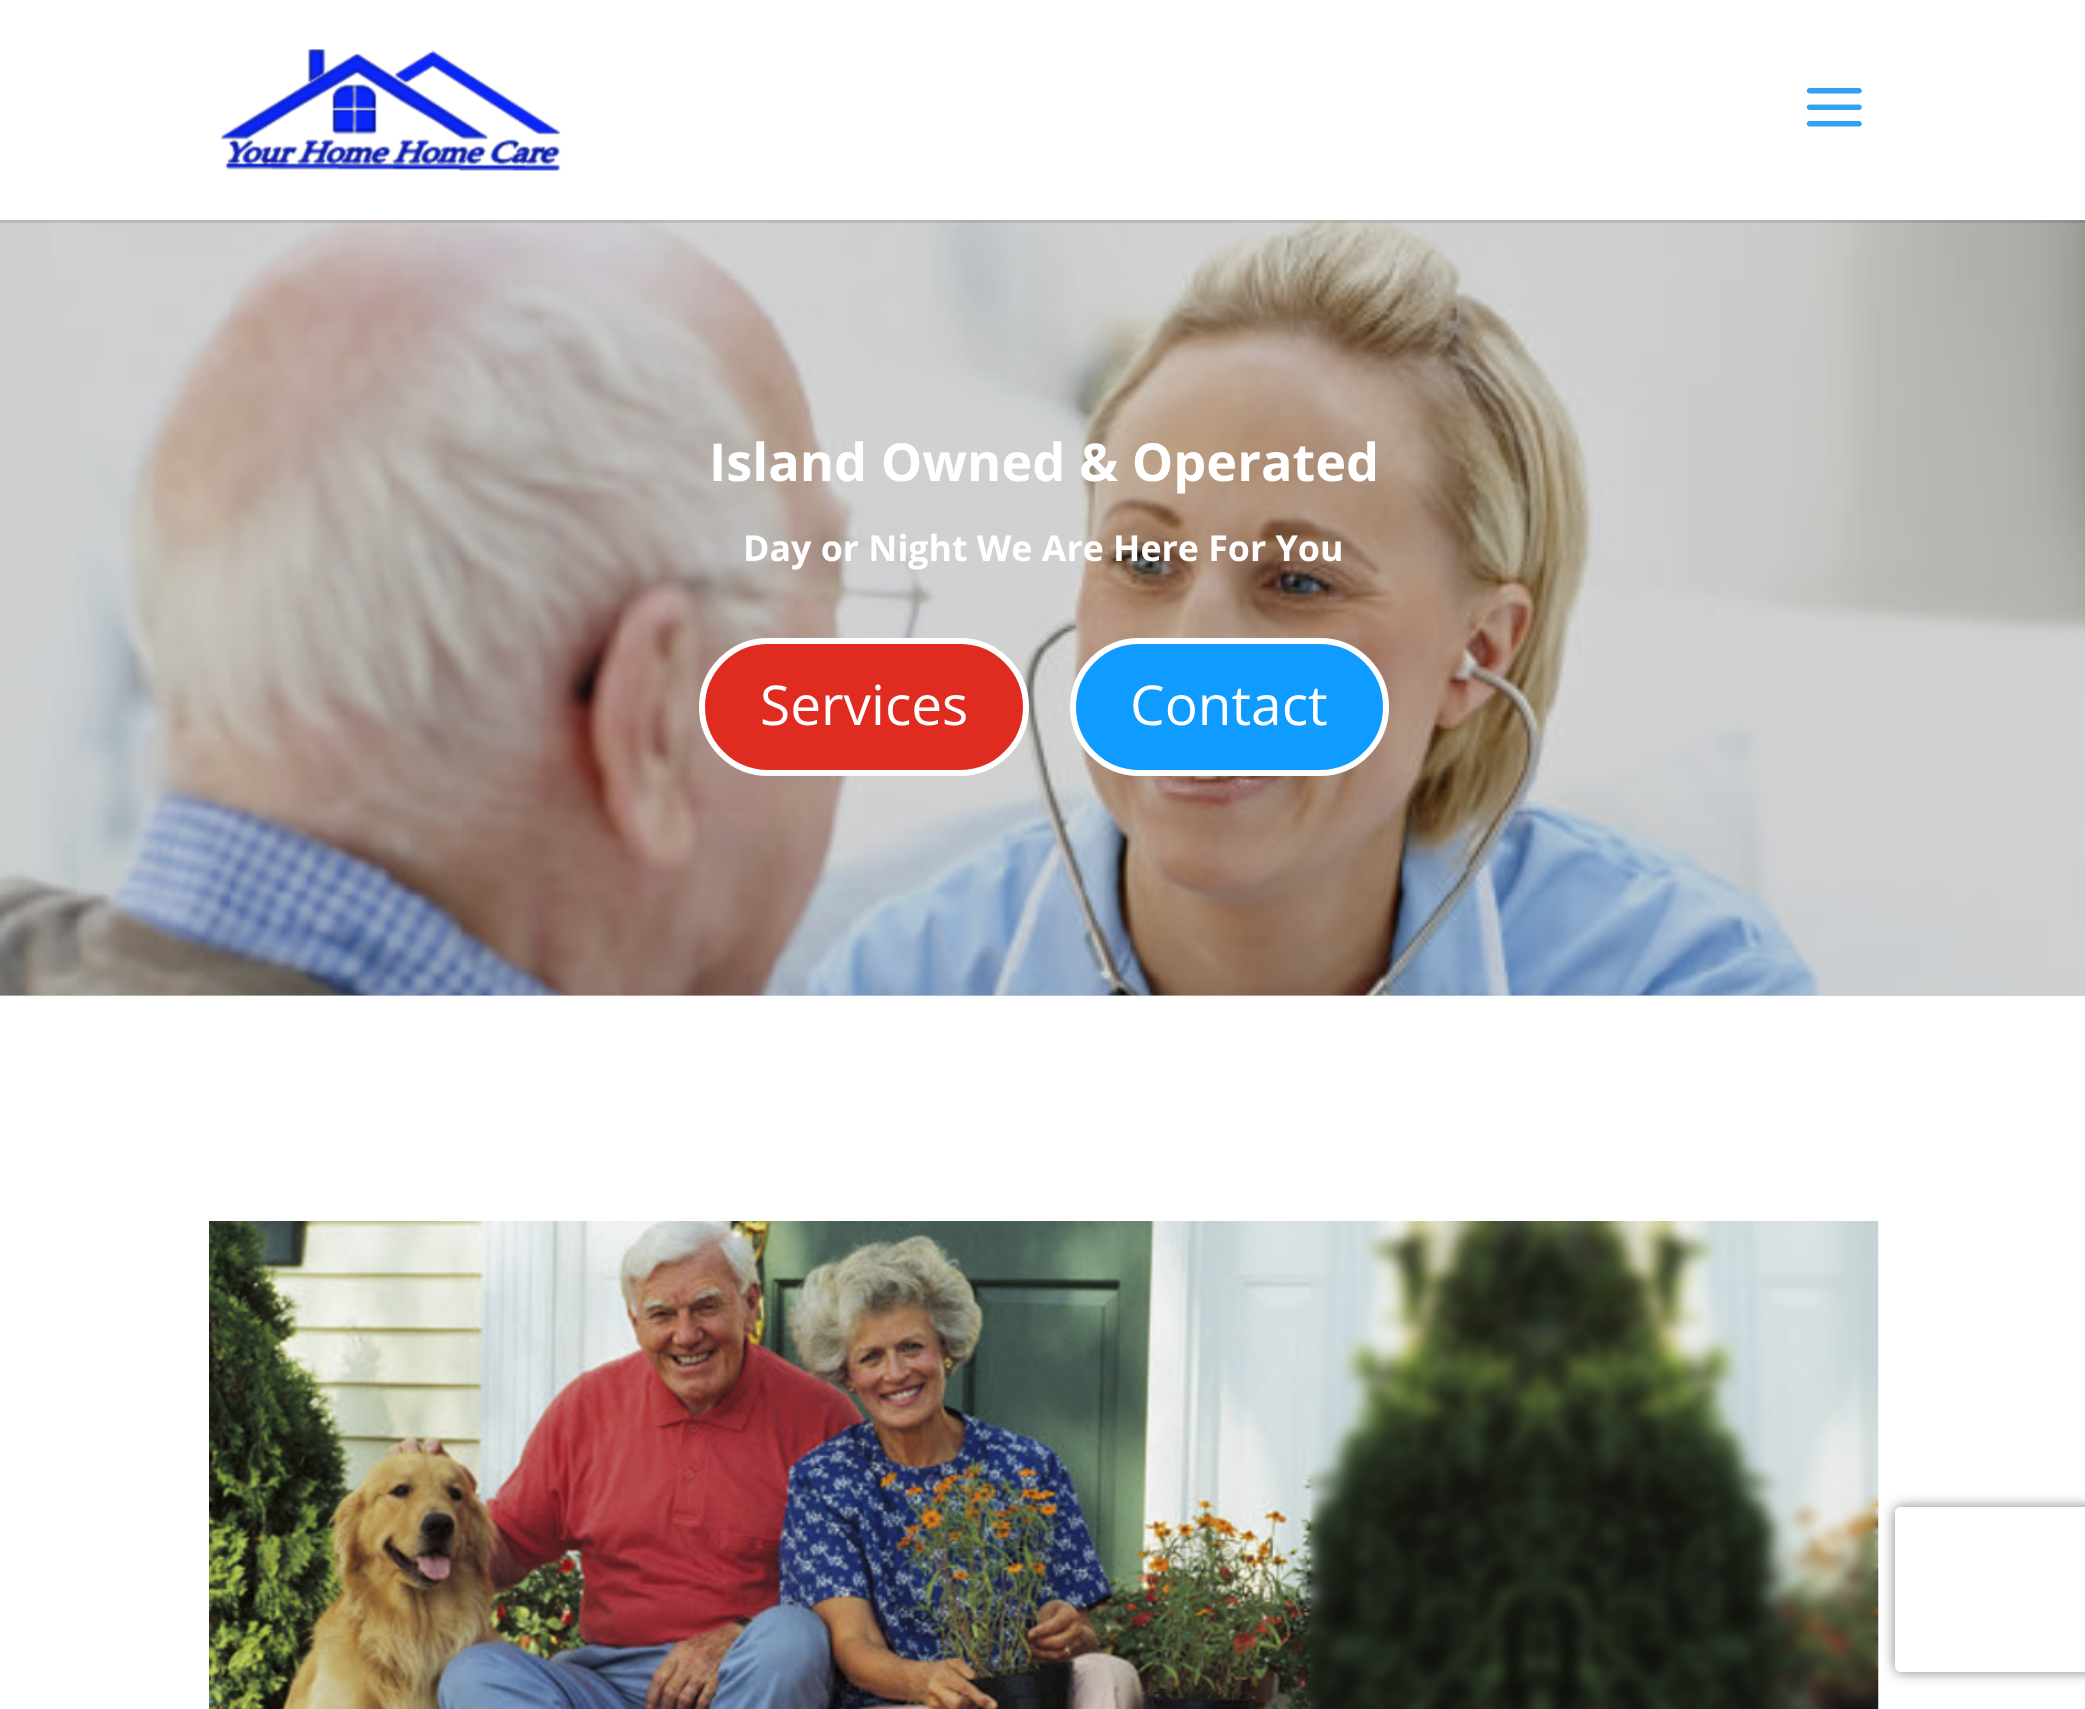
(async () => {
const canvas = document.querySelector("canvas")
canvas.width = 2085
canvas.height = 1709
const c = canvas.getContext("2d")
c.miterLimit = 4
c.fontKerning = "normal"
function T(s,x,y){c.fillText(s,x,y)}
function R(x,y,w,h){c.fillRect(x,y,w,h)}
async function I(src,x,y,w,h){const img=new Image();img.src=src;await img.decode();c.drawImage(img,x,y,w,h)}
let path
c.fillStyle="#fff"
R(0,0,2085,1709)
c.fillStyle="#d6d6d6"
R(0,995,2085,1)
await I("3.png",0,220,2085,776)
c.fillStyle="#0000001a"
R(0,220,2085,3)
await I("1.png",221,49,340,122)
await I("2.png",1806,88,56,39)
c.font="bold 52.25px Open Sans"
c.fillStyle="#fff"
T("Island Owned & Operated",709,481)
c.font="bold 35.75px Open Sans"
T("Day or Night We Are Here For You",743,561)
c.fillStyle="#e02b20"
c.beginPath()
c.roundRect(702,641,324,132,66)
c.fill()
c.strokeStyle="#fff"
c.lineWidth=6
c.stroke()
c.font="55px Open Sans"
c.fillStyle="#fff"
T("Services",760,725)
c.fillStyle="#0f9bff"
c.beginPath()
c.roundRect(1073,641,313,132,66)
c.fill()
c.stroke()
c.fillStyle="#fff"
T("Contact",1130,725)
await I("4.png",209,1221,1670,488)
c.save()
path = new Path2D("M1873 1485h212v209h-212zm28 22h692c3.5 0 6 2.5 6 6v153c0 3.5-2.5 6-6 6h-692c-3.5 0-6-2.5-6-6v-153c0-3.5 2.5-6 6-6z")
c.clip(path,"evenodd")
c.fillStyle="#808080"
c.filter="blur(7px)"
c.beginPath()
c.roundRect(1895,1507,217,165,6)
c.fill()
c.filter="none"
c.restore()
})()
